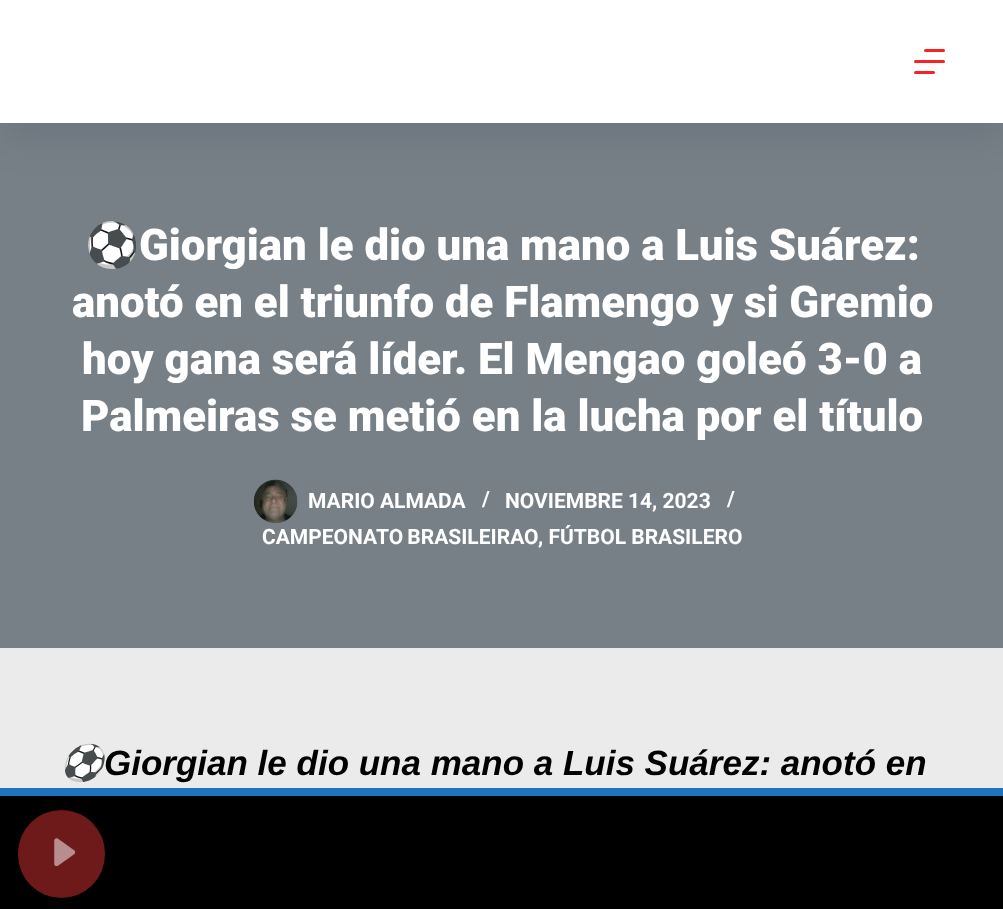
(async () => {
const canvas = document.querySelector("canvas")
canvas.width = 1003
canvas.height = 909
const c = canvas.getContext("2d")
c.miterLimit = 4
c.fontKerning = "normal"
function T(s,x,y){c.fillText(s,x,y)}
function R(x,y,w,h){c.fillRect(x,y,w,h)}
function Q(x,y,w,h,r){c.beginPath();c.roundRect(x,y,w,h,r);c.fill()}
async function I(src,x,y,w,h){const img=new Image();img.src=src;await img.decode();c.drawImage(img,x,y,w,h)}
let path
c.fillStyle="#ebebeb"
R(0,0,1003,909)
c.fillStyle="#778087"
R(0,123,1003,525)
c.fillStyle="#2c3e5026"
c.filter="blur(17.5px)"
c.beginPath()
c.rect(0,18,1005,122)
c.fill()
c.filter="none"
c.fillStyle="#fff"
R(0,0,1003,123)
c.fillStyle="#f92124"
Q(924,49,21,3,1.5)
Q(914,60,31,3,1.5)
Q(914,71,21,3,1.5)
c.font="bold 43.75px Noto Color Emoji"
c.fillStyle="#fff"
T("⚽️",85,260)
c.font="900 43.75px Roboto"
T("Giorgian le dio una mano a Luis Suárez:",139,260)
T("anotó en el triunfo de Flamengo y si Gremio",72,317)
T("hoy gana será líder. El Mengao goleó 3-0 a",82,374)
T("Palmeiras se metió en la lucha por el título",81,431)
await I("1.png",253,479,45,44)
c.font="bold 21px Roboto"
T("MARIO ALMADA",308,508)
T("/",482,506)
T("NOVIEMBRE 14, 2023",505,508)
T("/",727,506)
c.wordSpacing="-1px"
T("CAMPEONATO BRASILEIRAO",262,544)
c.wordSpacing="0px"
T(", FÚTBOL BRASILERO",538,544)
c.font="italic bold 35px Noto Color Emoji"
c.fillStyle="#000"
T("⚽️",60,775)
c.font="italic bold 35px Liberation Sans"
T("Giorgian le dio una mano a Luis Suárez: anotó en",104,775)
R(0,796,1003,113)
c.fillStyle="#1e73be"
R(0,788,1003,8)
c.fillStyle="#6f1a1a"
Q(18,810,87,88,43.5)
await I("2.png",54,838,21,28)
path = new Path2D("M27 820c11.5-11.5 28-16.5 43.5-13c9.5 1.5 18 6.5 25 13c30 30 8.5 82-34 82c-13 0-25.5-5-34.5-14")
c.strokeStyle="#00000033"
c.lineWidth=8.8
c.stroke(path)
path = new Path2D("M27 888c-18.5-18.5-18.5-49.5 0-68")
c.strokeStyle="#000"
c.stroke(path)
})()
